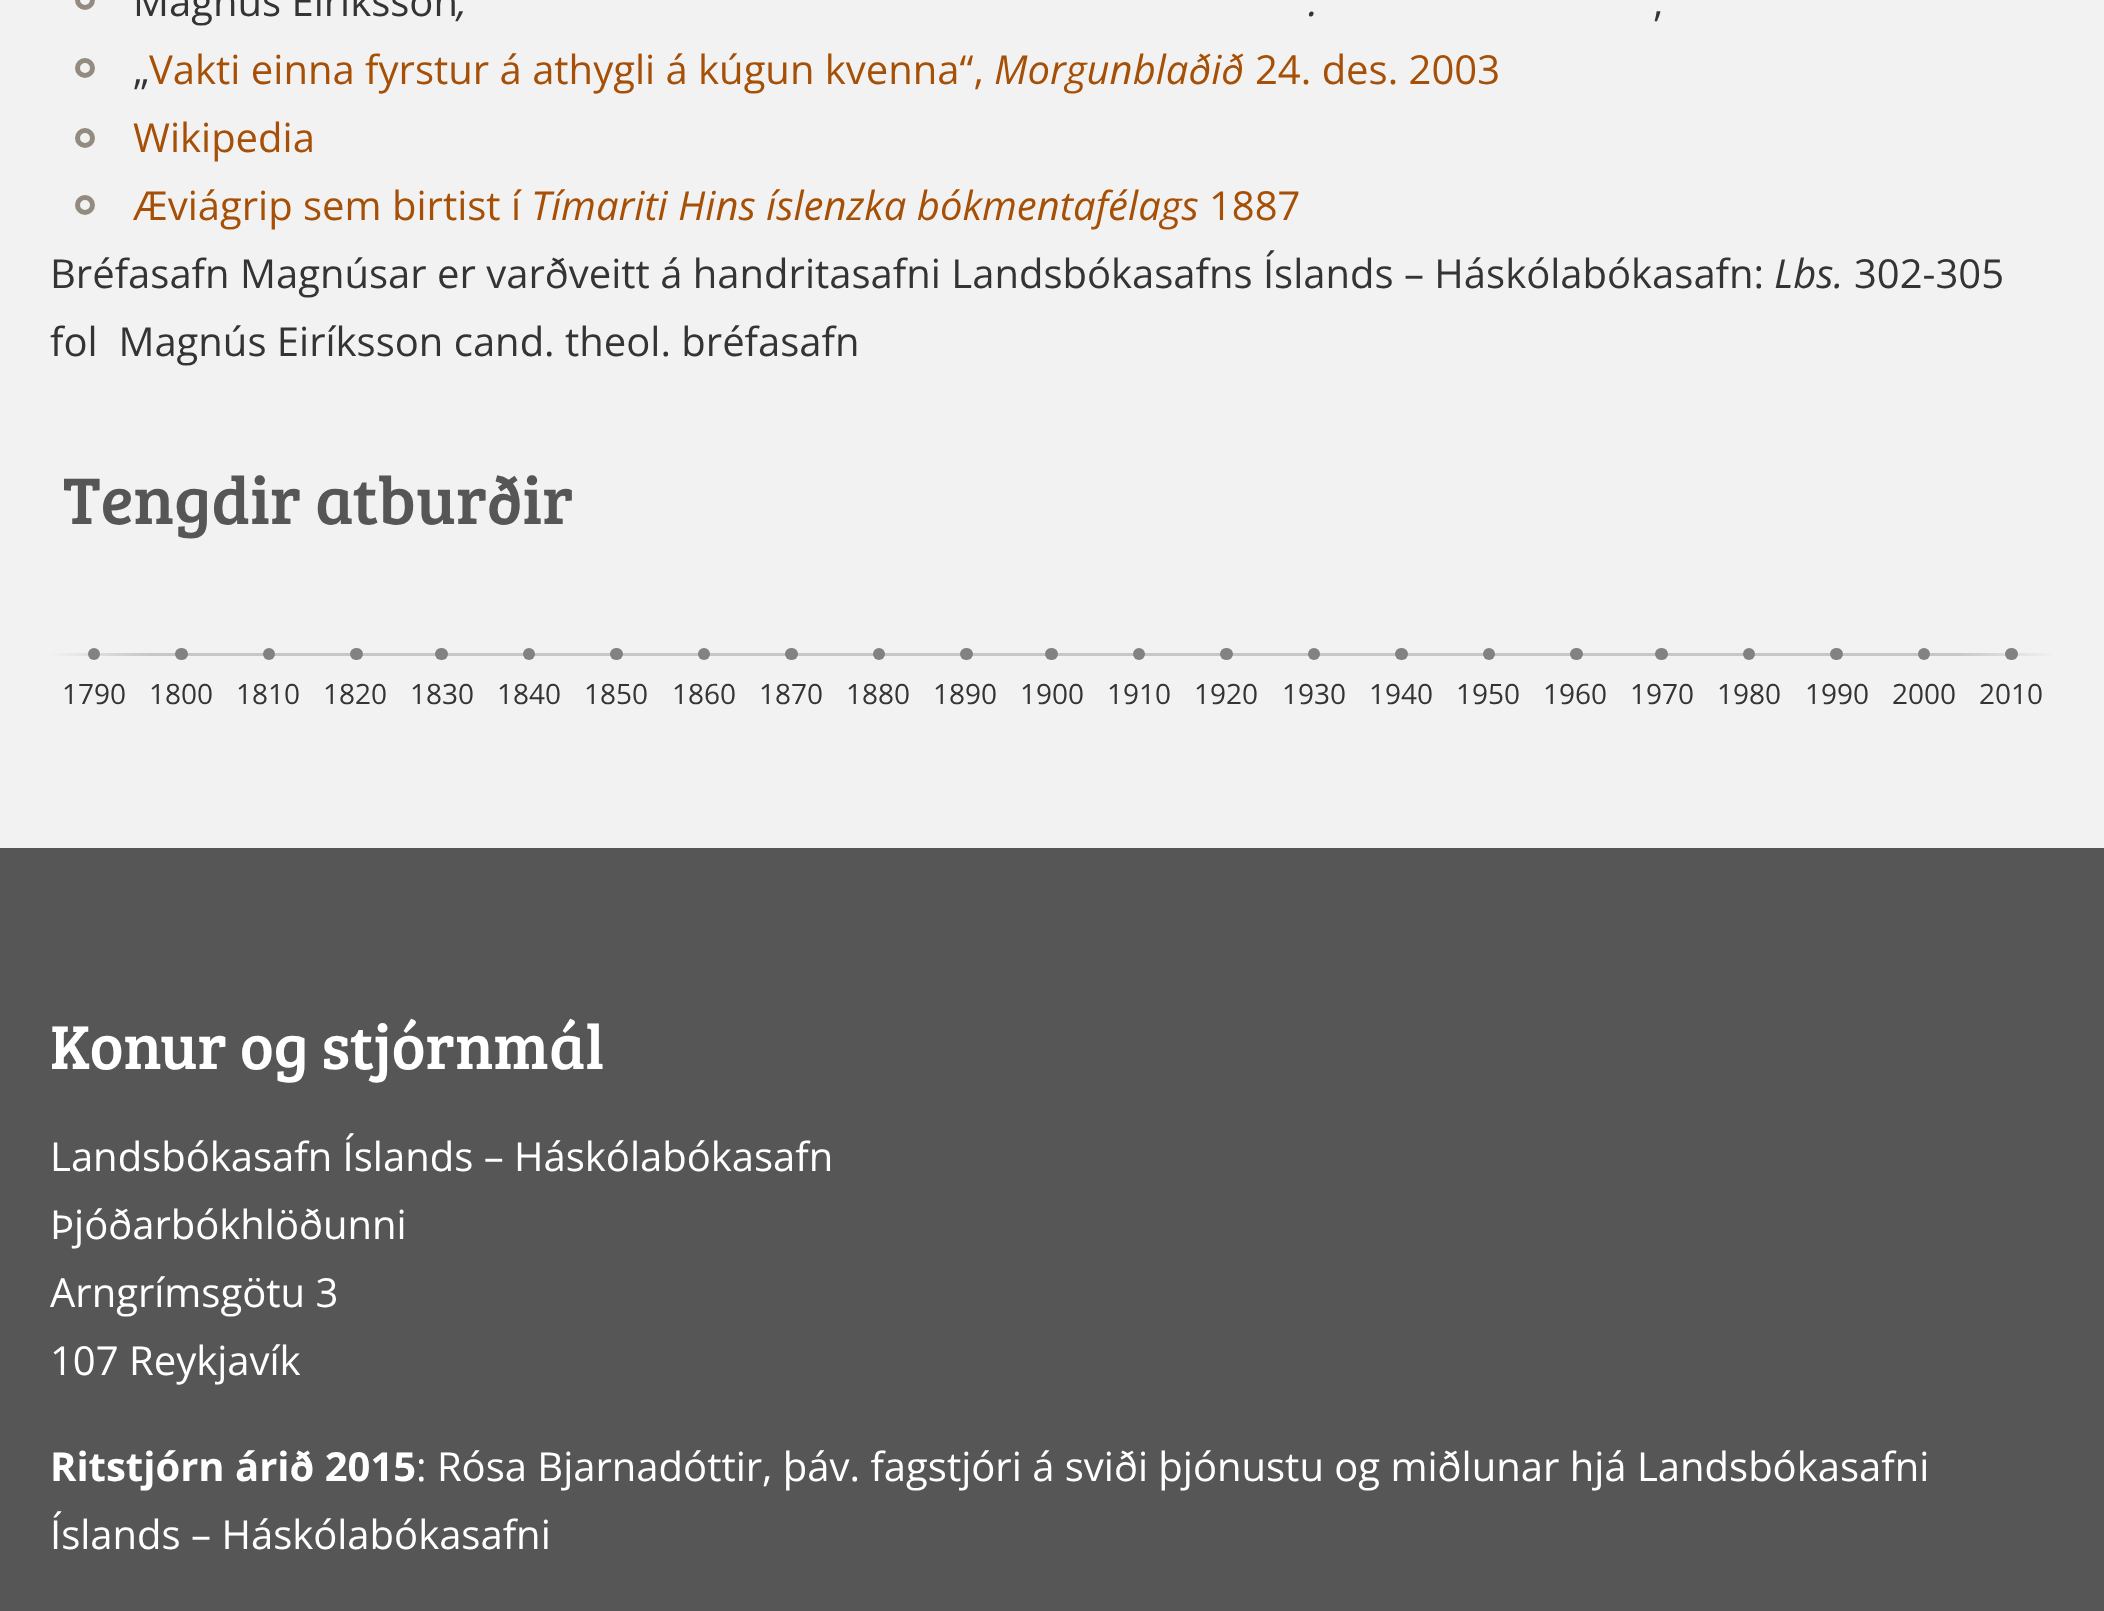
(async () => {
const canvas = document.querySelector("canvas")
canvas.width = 2104
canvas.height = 1611
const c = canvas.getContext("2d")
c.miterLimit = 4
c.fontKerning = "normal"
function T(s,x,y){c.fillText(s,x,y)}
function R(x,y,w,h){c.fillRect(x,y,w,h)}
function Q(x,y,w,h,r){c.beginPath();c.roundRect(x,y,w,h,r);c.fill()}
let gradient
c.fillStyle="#f2f2f2"
R(0,0,2104,1611)
c.beginPath()
c.arc(85,0,7.5,0,7)
c.strokeStyle="#938b80"
c.lineWidth=5
c.stroke()
c.font="40px Open Sans"
c.fillStyle="#343434"
T("Magnús Eiríksson",133,16)
c.font="italic 40px Open Sans"
T(",",457,16)
T(".",1308,16)
c.font="40px Open Sans"
T(",",1653,16)
c.beginPath()
c.arc(85,68,7.5,0,7)
c.stroke()
c.fillStyle="#a64f06"
T("Vakti einna fyrstur á athygli á kúgun kvenna“,",149,84)
c.font="italic 40px Open Sans"
T("Morgunblaðið",994,84)
c.font="40px Open Sans"
T("24. des. 2003",1255,84)
c.fillStyle="#343434"
T("„",133,84)
c.beginPath()
c.arc(85,138,7.5,0,7)
c.stroke()
c.fillStyle="#a64f06"
T("Wikipedia",133,152)
c.beginPath()
c.arc(85,205,7.5,0,7)
c.stroke()
T("Æviágrip sem birtist í",133,220)
c.font="italic 40px Open Sans"
T("Tímariti Hins íslenzka bókmentafélags",531,220)
c.font="40px Open Sans"
T("1887",1209,220)
c.fillStyle="#343434"
T("Bréfasafn Magnúsar er varðveitt á handritasafni Landsbókasafns Íslands – Háskólabókasafn:",50,288)
c.font="italic 40px Open Sans"
T("Lbs.",1774,288)
c.font="40px Open Sans"
T("302-305",1854,288)
T("fol  Magnús Eiríksson cand. theol. bréfasafn",50,356)
c.font="68px Bree Serif"
c.fillStyle="#565656"
T("Tengdir atburðir",63,524)
gradient = c.createLinearGradient(50,654,2055,654)
gradient.addColorStop(0,"#f2f2f2")
gradient.addColorStop(.05,"#c7c7c7")
gradient.addColorStop(.95,"#c7c7c7")
gradient.addColorStop(1,"#f2f2f2")
c.fillStyle = gradient
R(50,653,2005,3)
c.fillStyle="#828282"
c.beginPath()
c.arc(94,654,6,0,7)
c.fill()
c.font="28px Open Sans"
c.fillStyle="#343434"
T("1790",62,704)
c.fillStyle="#828282"
Q(175,648,13,12,6)
c.fillStyle="#343434"
T("1800",149,704)
c.fillStyle="#828282"
c.beginPath()
c.arc(269,654,6,0,7)
c.fill()
c.fillStyle="#343434"
T("1810",236,704)
c.fillStyle="#828282"
Q(350,648,13,12,6)
c.fillStyle="#343434"
T("1820",323,704)
c.fillStyle="#828282"
Q(435,648,13,12,6)
c.fillStyle="#343434"
T("1830",410,704)
c.fillStyle="#828282"
c.beginPath()
c.arc(529,654,6,0,7)
c.fill()
c.fillStyle="#343434"
T("1840",497,704)
c.fillStyle="#828282"
Q(610,648,13,12,6)
c.fillStyle="#343434"
T("1850",584,704)
c.fillStyle="#828282"
c.beginPath()
c.arc(704,654,6,0,7)
c.fill()
c.fillStyle="#343434"
T("1860",672,704)
c.fillStyle="#828282"
Q(785,648,13,12,6)
c.fillStyle="#343434"
T("1870",759,704)
c.fillStyle="#828282"
c.beginPath()
c.arc(879,654,6,0,7)
c.fill()
c.fillStyle="#343434"
T("1880",846,704)
c.fillStyle="#828282"
Q(960,648,13,12,6)
c.fillStyle="#343434"
T("1890",933,704)
c.fillStyle="#828282"
Q(1045,648,13,12,6)
c.fillStyle="#343434"
T("1900",1020,704)
c.fillStyle="#828282"
c.beginPath()
c.arc(1139,654,6,0,7)
c.fill()
c.fillStyle="#343434"
T("1910",1107,704)
c.fillStyle="#828282"
Q(1220,648,13,12,6)
c.fillStyle="#343434"
T("1920",1194,704)
c.fillStyle="#828282"
c.beginPath()
c.arc(1314,654,6,0,7)
c.fill()
c.fillStyle="#343434"
T("1930",1282,704)
c.fillStyle="#828282"
Q(1395,648,13,12,6)
c.fillStyle="#343434"
T("1940",1369,704)
c.fillStyle="#828282"
c.beginPath()
c.arc(1489,654,6,0,7)
c.fill()
c.fillStyle="#343434"
T("1950",1456,704)
c.fillStyle="#828282"
Q(1570,648,13,12,6)
c.fillStyle="#343434"
T("1960",1543,704)
c.fillStyle="#828282"
Q(1655,648,13,12,6)
c.fillStyle="#343434"
T("1970",1630,704)
c.fillStyle="#828282"
c.beginPath()
c.arc(1749,654,6,0,7)
c.fill()
c.fillStyle="#343434"
T("1980",1717,704)
c.fillStyle="#828282"
Q(1830,648,13,12,6)
c.fillStyle="#343434"
T("1990",1805,704)
c.fillStyle="#828282"
c.beginPath()
c.arc(1924,654,6,0,7)
c.fill()
c.fillStyle="#343434"
T("2000",1892,704)
c.fillStyle="#828282"
Q(2005,648,13,12,6)
c.fillStyle="#343434"
T("2010",1979,704)
c.fillStyle="#565656"
R(0,848,2104,763)
c.font="64px Bree Serif"
c.fillStyle="#fff"
T("Konur og stjórnmál",50,1069)
c.font="40px Open Sans"
T("Landsbókasafn Íslands – Háskólabókasafn",50,1171)
T("Þjóðarbókhlöðunni",50,1239)
T("Arngrímsgötu 3",50,1307)
T("107 Reykjavík",50,1375)
c.font="bold 40px Open Sans"
T("Ritstjórn árið 2015",50,1481)
c.font="40px Open Sans"
T(": Rósa Bjarnadóttir, þáv. fagstjóri á sviði þjónustu og miðlunar hjá Landsbókasafni",416,1481)
T("Íslands – Háskólabókasafni",50,1549)
})()
